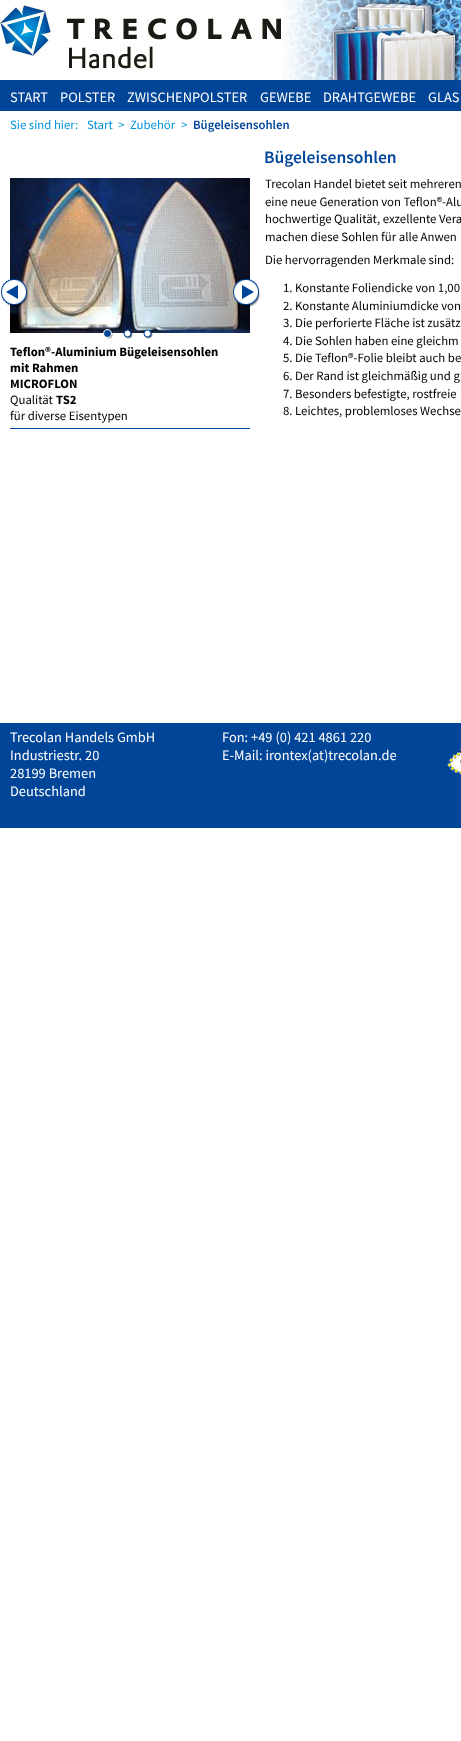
(async () => {
const canvas = document.querySelector("canvas")
canvas.width = 461
canvas.height = 1741
const c = canvas.getContext("2d")
c.miterLimit = 4
c.fontKerning = "normal"
function T(s,x,y){c.fillText(s,x,y)}
function R(x,y,w,h){c.fillRect(x,y,w,h)}
async function I(src,x,y,w,h){const img=new Image();img.src=src;await img.decode();c.drawImage(img,x,y,w,h)}
c.fillStyle="#fff"
R(0,0,461,1741)
await I("1.png",0,0,461,80)
c.fillStyle="#004598"
R(0,80,461,31)
c.font="14.4px Source Sans Pro"
c.fillStyle="#fff"
T("START",10,102)
T("POLSTER",60,102)
T("ZWISCHENPOLSTER",127,102)
T("GEWEBE",260,102)
T("DRAHTGEWEBE",323,102)
T("GLAS",428,102)
c.font="12.75px Source Sans Pro"
c.fillStyle="#0094d9"
T("Sie sind hier:",10,129)
T("Start",87,129)
T(">",118,129)
T("Zubehör",130,129)
T(">",181,129)
c.font="600 12.75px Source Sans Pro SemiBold"
c.fillStyle="#004598"
T("Bügeleisensohlen",193,129)
c.font="600 17.5px Source Sans Pro SemiBold"
T("Bügeleisensohlen",264,163)
await I("7.png",10,178,240,155)
await I("2.png",1,279,27,28)
await I("3.png",233,279,27,28)
await I("4.png",103,329,10,10)
await I("5.png",123,329,10,10)
await I("6.png",143,329,10,10)
R(10,428,240,1)
c.font="bold 12.75px Source Sans Pro"
c.fillStyle="#000"
T("Teflon®-Aluminium Bügeleisensohlen",10,356)
T("mit Rahmen",10,372)
T("MICROFLON",10,388)
c.font="12.75px Source Sans Pro"
T("Qualität",10,404)
c.font="bold 12.75px Source Sans Pro"
T("TS2",56,404)
c.font="12.75px Source Sans Pro"
T("für diverse Eisentypen",10,420)
T("Trecolan Handel bietet seit mehreren",265,188)
T("eine neue Generation von Teflon®-Alu",265,206)
T("hochwertige Qualität, exzellente Vera",265,223)
T("machen diese Sohlen für alle Anwen",265,241)
T("Die hervorragenden Merkmale sind:",265,264)
T("1. Konstante Foliendicke von 1,00",283,292)
T("2. Konstante Aluminiumdicke von",283,310)
T("3. Die perforierte Fläche ist zusätz",283,327)
T("4. Die Sohlen haben eine gleichm",283,345)
T("5. Die Teflon®-Folie bleibt auch be",283,362)
T("6. Der Rand ist gleichmäßig und g",283,380)
T("7. Besonders befestigte, rostfreie",283,398)
T("8. Leichtes, problemloses Wechse",283,415)
c.fillStyle="#004598"
R(0,723,461,105)
c.font="14.4px Source Sans Pro"
c.fillStyle="#fff"
T("Trecolan Handels GmbH",10,742)
T("Industriestr. 20",10,760)
T("28199 Bremen",10,778)
T("Deutschland",10,796)
T("Fon: +49 (0) 421 4861 220",222,742)
T("E-Mail: irontex(at)trecolan.de",222,760)
await I("8.png",447,748,14,27)
})()
